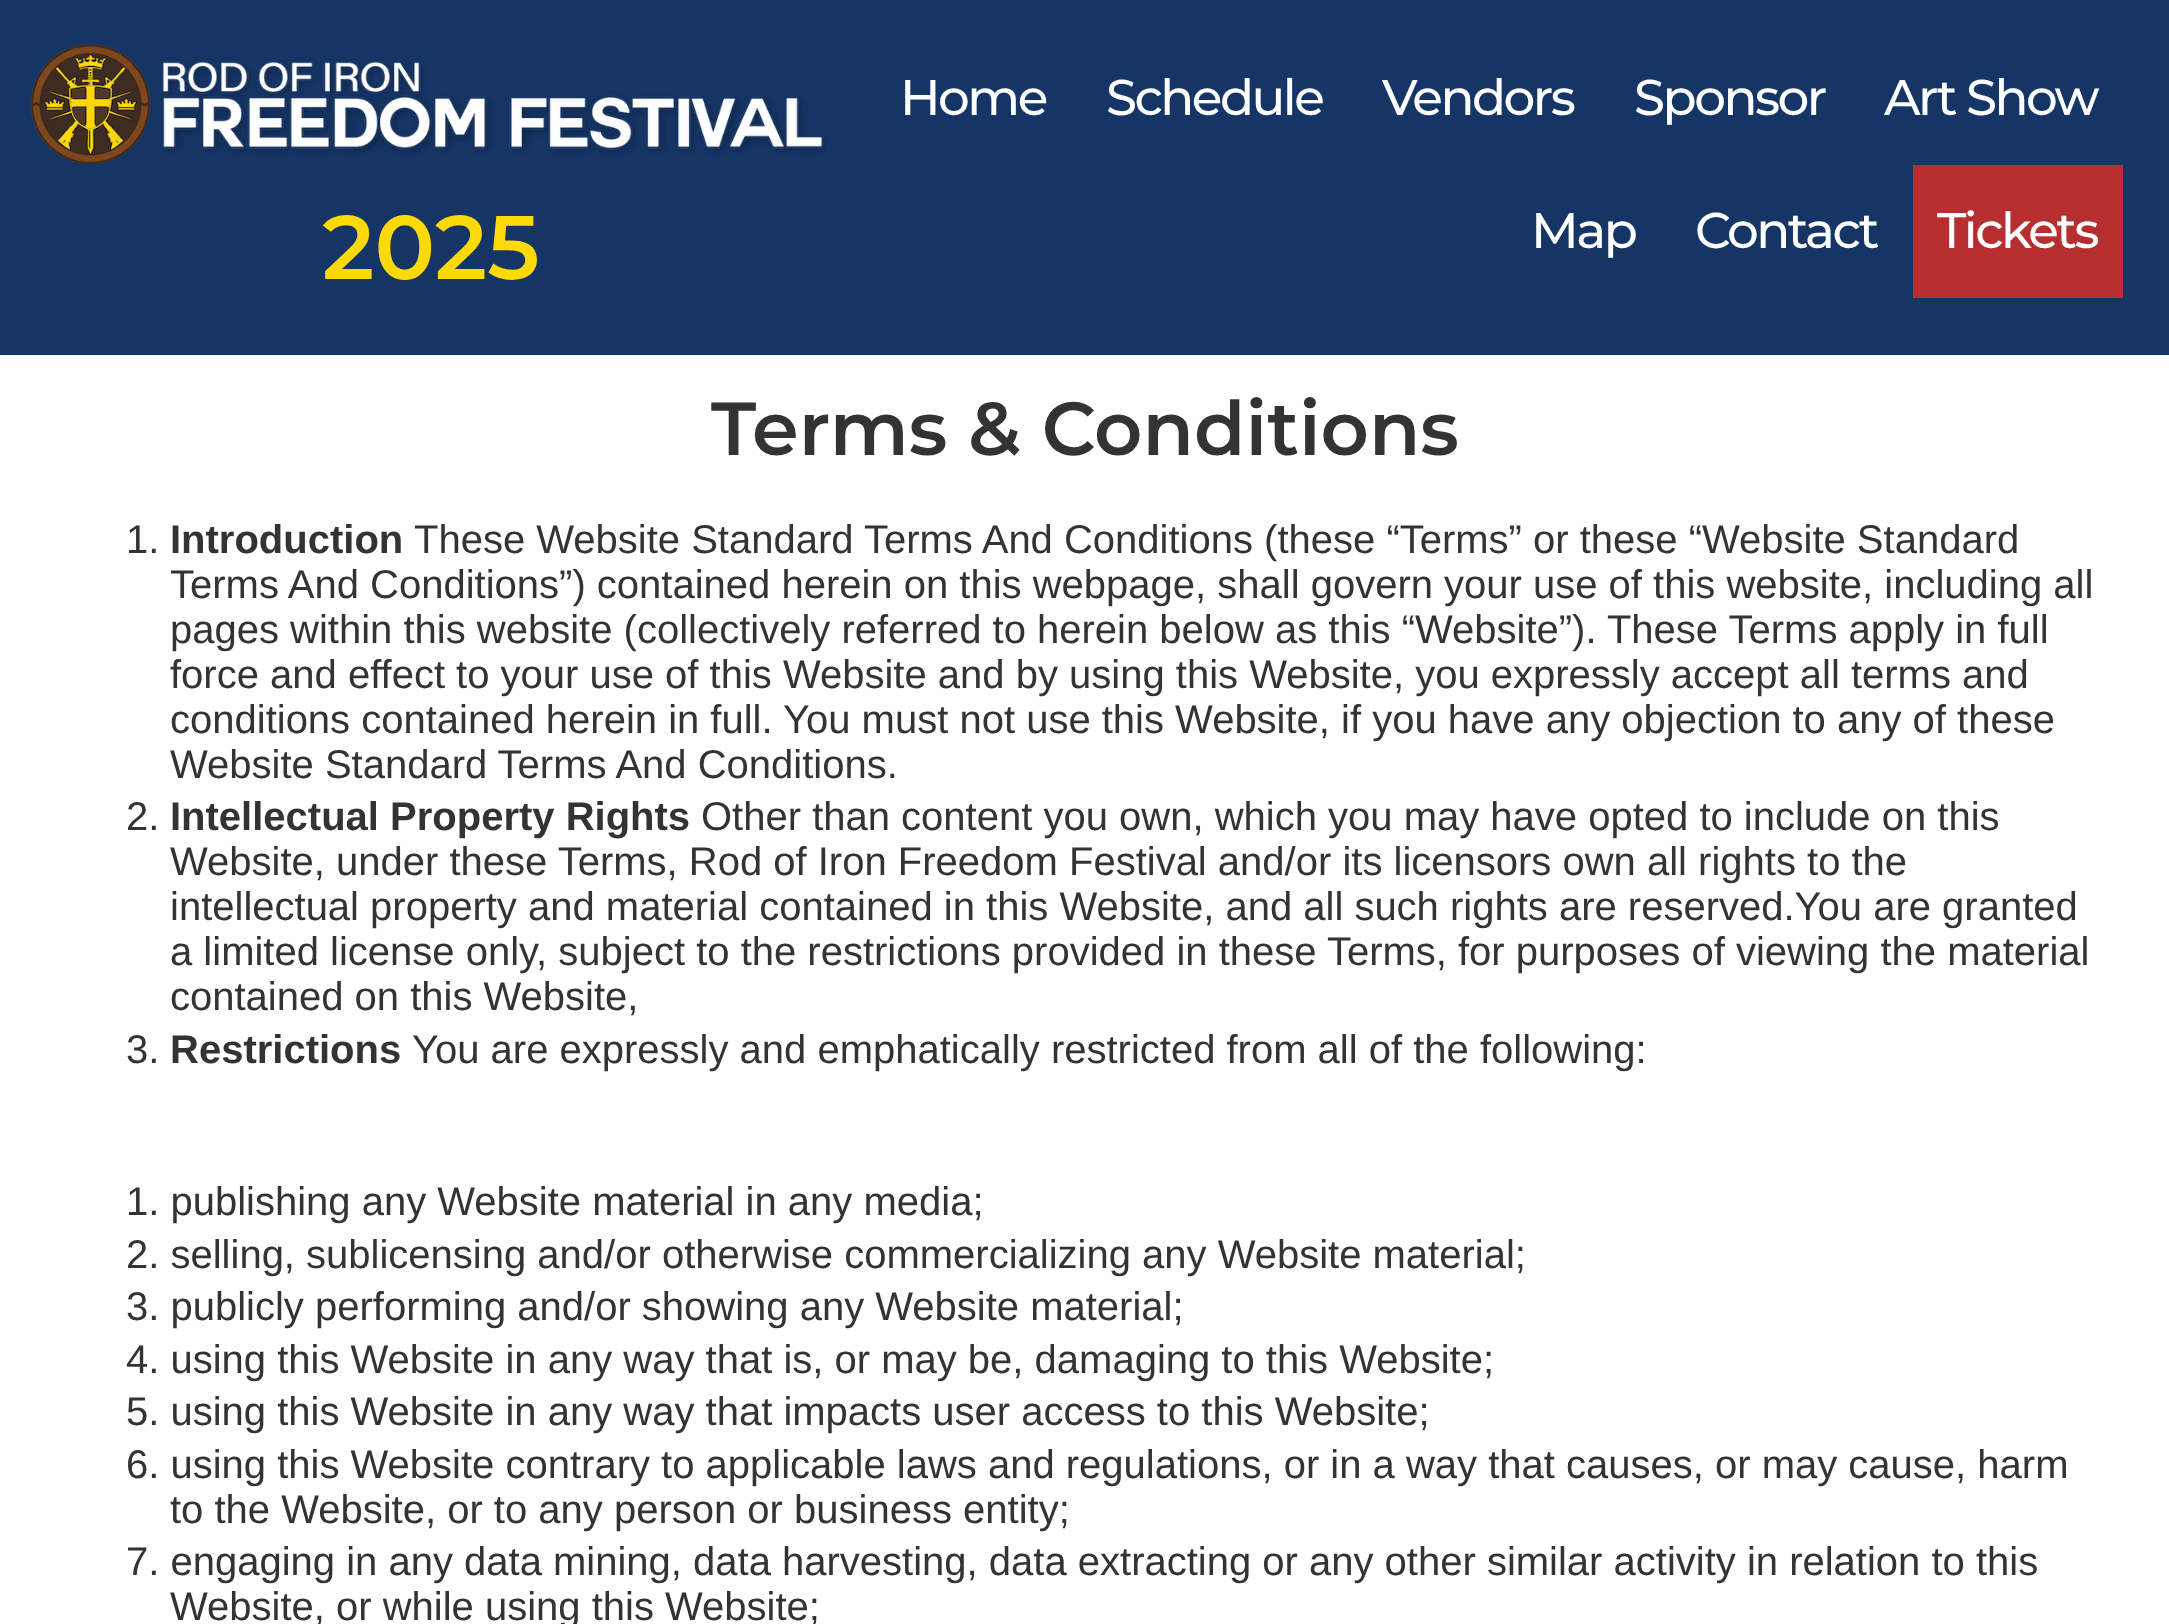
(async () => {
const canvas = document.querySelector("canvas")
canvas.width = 2169
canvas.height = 1624
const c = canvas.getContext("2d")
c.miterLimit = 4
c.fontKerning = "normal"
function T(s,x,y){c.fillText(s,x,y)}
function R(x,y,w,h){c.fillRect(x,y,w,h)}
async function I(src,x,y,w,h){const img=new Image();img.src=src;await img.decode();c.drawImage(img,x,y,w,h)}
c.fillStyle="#fff"
R(0,0,2169,1624)
c.fillStyle="#153566"
R(0,0,2169,355)
await I("1.png",30,44,798,121)
c.font="600 90px Montserrat"
c.fillStyle="#fdda05"
T("2025",322,279)
c.letterSpacing="-2.5px"
c.font="500 50px Montserrat"
c.fillStyle="#fff"
T("Home",900,115)
T("Schedule",1106,115)
T("Vendors",1382,115)
T("Sponsor",1634,115)
T("Art Show",1884,115)
T("Map",1531,248)
T("Contact",1695,248)
c.fillStyle="#b62e30"
R(1913,165,210,133)
c.fillStyle="#fff"
T("Tickets",1937,248)
c.letterSpacing="0px"
c.font="600 75px Montserrat"
c.fillStyle="#333"
T("Terms & Conditions",711,455)
c.font="40px Arimo"
T("1.",126,553)
c.font="bold 40px Arimo"
T("Introduction",170,553)
c.font="40px Arimo"
T("These Website Standard Terms And Conditions (these “Terms” or these “Website Standard",414,553)
T("Terms And Conditions”) contained herein on this webpage, shall govern your use of this website, including all",170,598)
T("pages within this website (collectively referred to herein below as this “Website”). These Terms apply in full",170,643)
T("force and effect to your use of this Website and by using this Website, you expressly accept all terms and",170,688)
T("conditions contained herein in full. You must not use this Website, if you have any objection to any of these",170,733)
T("Website Standard Terms And Conditions.",170,778)
T("2.",126,830)
c.font="bold 40px Arimo"
T("Intellectual Property Rights",170,830)
c.font="40px Arimo"
T("Other than content you own, which you may have opted to include on this",701,830)
T("Website, under these Terms, Rod of Iron Freedom Festival and/or its licensors own all rights to the",170,875)
T("intellectual property and material contained in this Website, and all such rights are reserved.You are granted",170,920)
T("a limited license only, subject to the restrictions provided in these Terms, for purposes of viewing the material",170,965)
T("contained on this Website,",170,1010)
T("3.",126,1063)
c.font="bold 40px Arimo"
T("Restrictions",170,1063)
c.font="40px Arimo"
T("You are expressly and emphatically restricted from all of the following:",412,1063)
T("1. publishing any Website material in any media;",126,1215)
T("2. selling, sublicensing and/or otherwise commercializing any Website material;",126,1268)
T("3. publicly performing and/or showing any Website material;",126,1320)
T("4. using this Website in any way that is, or may be, damaging to this Website;",126,1373)
T("5. using this Website in any way that impacts user access to this Website;",126,1425)
T("6. using this Website contrary to applicable laws and regulations, or in a way that causes, or may cause, harm",126,1478)
T("to the Website, or to any person or business entity;",170,1523)
T("7. engaging in any data mining, data harvesting, data extracting or any other similar activity in relation to this",126,1575)
T("Website, or while using this Website;",170,1620)
})()
